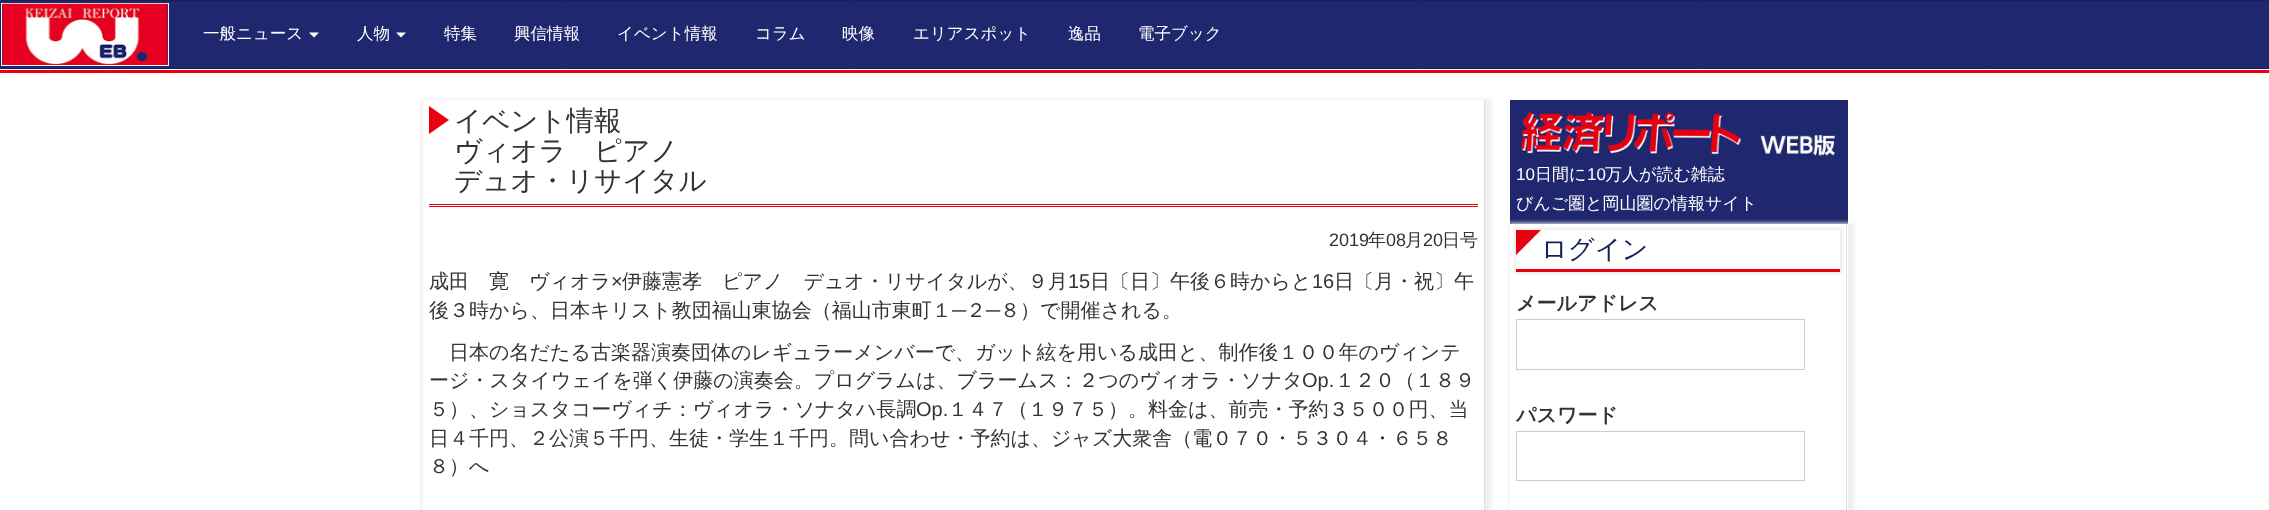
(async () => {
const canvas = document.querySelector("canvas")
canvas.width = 2269
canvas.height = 510
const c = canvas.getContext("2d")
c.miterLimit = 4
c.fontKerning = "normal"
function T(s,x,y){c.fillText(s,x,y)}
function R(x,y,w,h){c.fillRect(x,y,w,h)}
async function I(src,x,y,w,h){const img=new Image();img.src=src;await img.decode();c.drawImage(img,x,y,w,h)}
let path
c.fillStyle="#fff"
R(0,0,2269,510)
c.fillStyle="#e70012"
R(0,70,2269,3)
c.fillStyle="#1f286f"
c.beginPath()
c.rect(.5,.5,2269,68)
c.fill()
c.strokeStyle="#181f55"
c.stroke()
c.strokeStyle="#fff"
c.strokeRect(1.5,3.5,167,62)
await I("1.png",2,3,166,62)
c.font="500 16.5px WenQuanYi Zen Hei"
c.fillStyle="#fff"
T("一般ニュース",203,39)
path = new Path2D("M309 32.5h10l-5 5z")
c.fill(path)
T("人物",357,39)
path = new Path2D("M396 32.5h10l-5 5z")
c.fill(path)
T("特集",444,39)
T("興信情報",514,39)
T("イベント情報",617,39)
T("コラム",755,39)
T("映像",842,39)
T("エリアスポット",913,39)
T("逸品",1068,39)
T("電子ブック",1138,39)
c.save()
path = new Path2D("M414 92h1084v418h-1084zm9 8h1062v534h-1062z")
c.clip(path,"evenodd")
c.fillStyle="#eee"
c.filter="blur(2px)"
c.beginPath()
c.rect(421,99,1070,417)
c.fill()
c.filter="none"
c.restore()
c.fillStyle="#ddd"
R(1484,100,1,410)
c.fillStyle="#e70012"
R(429,204,1049,1)
R(429,206,1049,1)
path = new Path2D("M429 134v-28l20 14z")
c.fill(path)
c.font="500 27.5px WenQuanYi Zen Hei"
c.fillStyle="#333"
T("イベント情報",454,130)
T("ヴィオラ　ピアノ",454,160)
T("デュオ・リサイタル",454,190)
c.font="18px Liberation Sans"
T("2019",1329,246)
c.font="500 18px WenQuanYi Zen Hei"
T("年",1368,246)
c.font="18px Liberation Sans"
T("08",1386,246)
c.font="500 18px WenQuanYi Zen Hei"
T("月",1405,246)
c.font="18px Liberation Sans"
T("20",1423,246)
c.font="500 18px WenQuanYi Zen Hei"
T("日号",1442,246)
c.font="500 20px WenQuanYi Zen Hei"
T("成田　寛　ヴィオラ",429,288)
c.font="20px Liberation Sans"
T("×",611,288)
c.font="500 20px WenQuanYi Zen Hei"
T("伊藤憲孝　ピアノ　デュオ・リサイタルが、９月",622,288)
c.font="20px Liberation Sans"
T("15",1068,288)
c.font="500 20px WenQuanYi Zen Hei"
T("日〔日〕午後６時からと",1090,288)
c.font="20px Liberation Sans"
T("16",1312,288)
c.font="500 20px WenQuanYi Zen Hei"
T("日〔月・祝〕午",1334,288)
T("後３時から、日本キリスト教団福山東協会（福山市東町１",429,317)
c.font="20px Liberation Sans"
T("─",952,317)
c.font="500 20px WenQuanYi Zen Hei"
T("２",966,317)
c.font="20px Liberation Sans"
T("─",986,317)
c.font="500 20px WenQuanYi Zen Hei"
T("８）で開催される。",1000,317)
T("日本の名だたる古楽器演奏団体のレギュラーメンバーで、ガット絃を用いる成田と、制作後１００年のヴィンテ",449,359)
T("ージ・スタイウェイを弾く伊藤の演奏会。プログラムは、ブラームス：２つのヴィオラ・ソナタ",429,387)
c.font="20px Liberation Sans"
T("Op.",1302,387)
c.font="500 20px WenQuanYi Zen Hei"
T("１２０（１８９",1335,387)
T("５）、ショスタコーヴィチ：ヴィオラ・ソナタハ長調",429,416)
c.font="20px Liberation Sans"
T("Op.",916,416)
c.font="500 20px WenQuanYi Zen Hei"
T("１４７（１９７５）。料金は、前売・予約３５００円、当",948,416)
T("日４千円、２公演５千円、生徒・学生１千円。問い合わせ・予約は、ジャズ大衆舎（電０７０・５３０４・６５８",429,445)
T("８）へ",429,473)
c.fillStyle="#1f276f"
R(1510,100,338,124)
await I("2.png",1520,111,315,45)
c.font="17px Liberation Sans"
c.fillStyle="#fff"
T("10",1516,180)
c.font="500 17px WenQuanYi Zen Hei"
T("日間に",1535,180)
c.font="17px Liberation Sans"
T("10",1587,180)
c.font="500 17px WenQuanYi Zen Hei"
T("万人が読む雑誌",1605,180)
T("びんご圏と岡山圏の情報サイト",1516,209)
c.save()
path = new Path2D("M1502 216h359v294h-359zm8 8h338v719h-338z")
c.clip(path,"evenodd")
c.fillStyle="#eee"
c.filter="blur(2px)"
c.beginPath()
c.rect(1509,223,345,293)
c.fill()
c.filter="none"
c.restore()
c.fillStyle="#ddd"
R(1846,224,1,286)
c.save()
path = new Path2D("M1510 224h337v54h-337zm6 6h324v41h-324z")
c.clip(path,"evenodd")
c.fillStyle="#efefef"
c.filter="blur(1px)"
c.beginPath()
c.rect(1514,228,329,46)
c.fill()
c.filter="none"
c.restore()
c.fillStyle="#e70012"
R(1516,269,324,3)
path = new Path2D("M1516 230h25l-25 25z")
c.fill(path)
c.font="500 26.25px WenQuanYi Zen Hei"
c.fillStyle="#181f55"
T("ログイン",1541,258)
c.font="bold 20px WenQuanYi Zen Hei"
c.fillStyle="#333"
T("メールアドレス",1516,310)
c.strokeStyle="#ccc"
c.strokeRect(1516.5,319.5,288,50)
T("パスワード",1516,422)
c.strokeRect(1516.5,431.5,288,49)
})()
